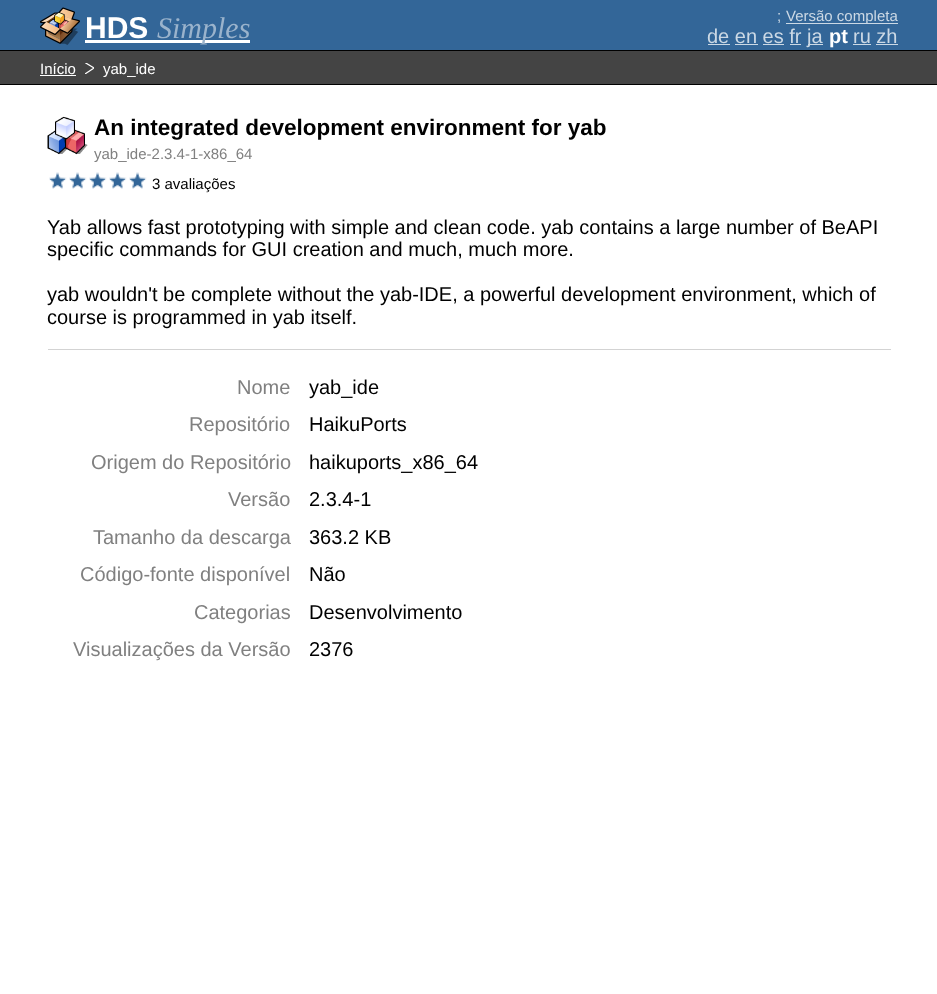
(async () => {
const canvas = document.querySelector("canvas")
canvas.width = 937
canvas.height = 994
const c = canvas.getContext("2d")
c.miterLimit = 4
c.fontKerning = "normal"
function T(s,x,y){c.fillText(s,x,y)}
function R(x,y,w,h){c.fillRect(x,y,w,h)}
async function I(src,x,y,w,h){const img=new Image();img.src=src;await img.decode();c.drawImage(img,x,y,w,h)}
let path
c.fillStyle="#fff"
R(0,0,937,994)
c.fillStyle="#336698"
R(0,0,937,50)
c.fillStyle="#000"
R(0,50,937,1)
await I("1.png",40,7,40,38)
c.font="bold 30px Liberation Sans"
c.fillStyle="#fff"
T("HDS",85,38)
R(85,40,165,3)
c.font="italic 30px Liberation Serif"
c.fillStyle="#9ab3cc"
T("Simples",157,38)
c.font="15px Liberation Sans"
c.fillStyle="#ccd9e5"
T(";",777,21)
R(786,23,112,1)
T("Versão completa",786,21)
c.font="20px Liberation Sans"
T("de en es fr",707,43)
R(708,44,22,1)
R(735,44,23,1)
R(763,44,21,1)
R(790,44,11,1)
R(808,44,15,1)
T("ja",807,43)
c.font="bold 20px Liberation Sans"
c.fillStyle="#fff"
T("pt",829,43)
c.fillStyle="#ccd9e5"
R(853,44,18,1)
c.font="20px Liberation Sans"
T("ru zh",853,43)
R(876,44,22,1)
c.fillStyle="#444"
R(0,51,937,33)
c.fillStyle="#000"
R(0,84,937,1)
c.font="15px Liberation Sans"
c.fillStyle="#fff"
T("Início",40,74)
R(40,75,36,1)
T("yab_ide",103,74)
c.save()
c.beginPath()
c.rect(85,63,9,11)
c.clip()
path = new Path2D("M85 74l9-6l-9-5.5")
c.strokeStyle="#fff"
c.lineWidth=1.2
c.stroke(path)
c.restore()
await I("2.png",47,116,41,39)
c.font="bold 22.5px Liberation Sans"
c.fillStyle="#000"
T("An integrated development environment for yab",94,135)
c.font="15px Liberation Sans"
c.fillStyle="#808080"
T("yab_ide-2.3.4-1-x86_64",94,159)
await I("3.png",49,172,18,17)
await I("3.png",69,172,18,17)
await I("4.png",89,172,18,17)
await I("4.png",109,172,18,17)
await I("4.png",129,172,18,17)
c.fillStyle="#000"
T("3 avaliações",152,189)
c.font="20px Liberation Sans"
T("Yab allows fast prototyping with simple and clean code. yab contains a large number of BeAPI",47,234)
T("specific commands for GUI creation and much, much more.",47,256)
T("yab wouldn't be complete without the yab-IDE, a powerful development environment, which of",47,301)
T("course is programmed in yab itself.",47,324)
c.fillStyle="#d3d3d3"
R(48,349,843,1)
c.fillStyle="#808080"
T("Nome",237,394)
c.fillStyle="#000"
T("yab_ide",309,394)
c.fillStyle="#808080"
T("Repositório",189,431)
c.fillStyle="#000"
T("HaikuPorts",309,431)
c.fillStyle="#808080"
T("Origem do Repositório",91,469)
c.fillStyle="#000"
T("haikuports_x86_64",309,469)
c.fillStyle="#808080"
T("Versão",228,506)
c.fillStyle="#000"
T("2.3.4-1",309,506)
c.fillStyle="#808080"
T("Tamanho da descarga",93,544)
c.fillStyle="#000"
T("363.2 KB",309,544)
c.fillStyle="#808080"
T("Código-fonte disponível",80,581)
c.fillStyle="#000"
T("Não",309,581)
c.fillStyle="#808080"
T("Categorias",194,619)
c.fillStyle="#000"
T("Desenvolvimento",309,619)
c.fillStyle="#808080"
T("Visualizações da Versão",73,656)
c.fillStyle="#000"
T("2376",309,656)
})()
